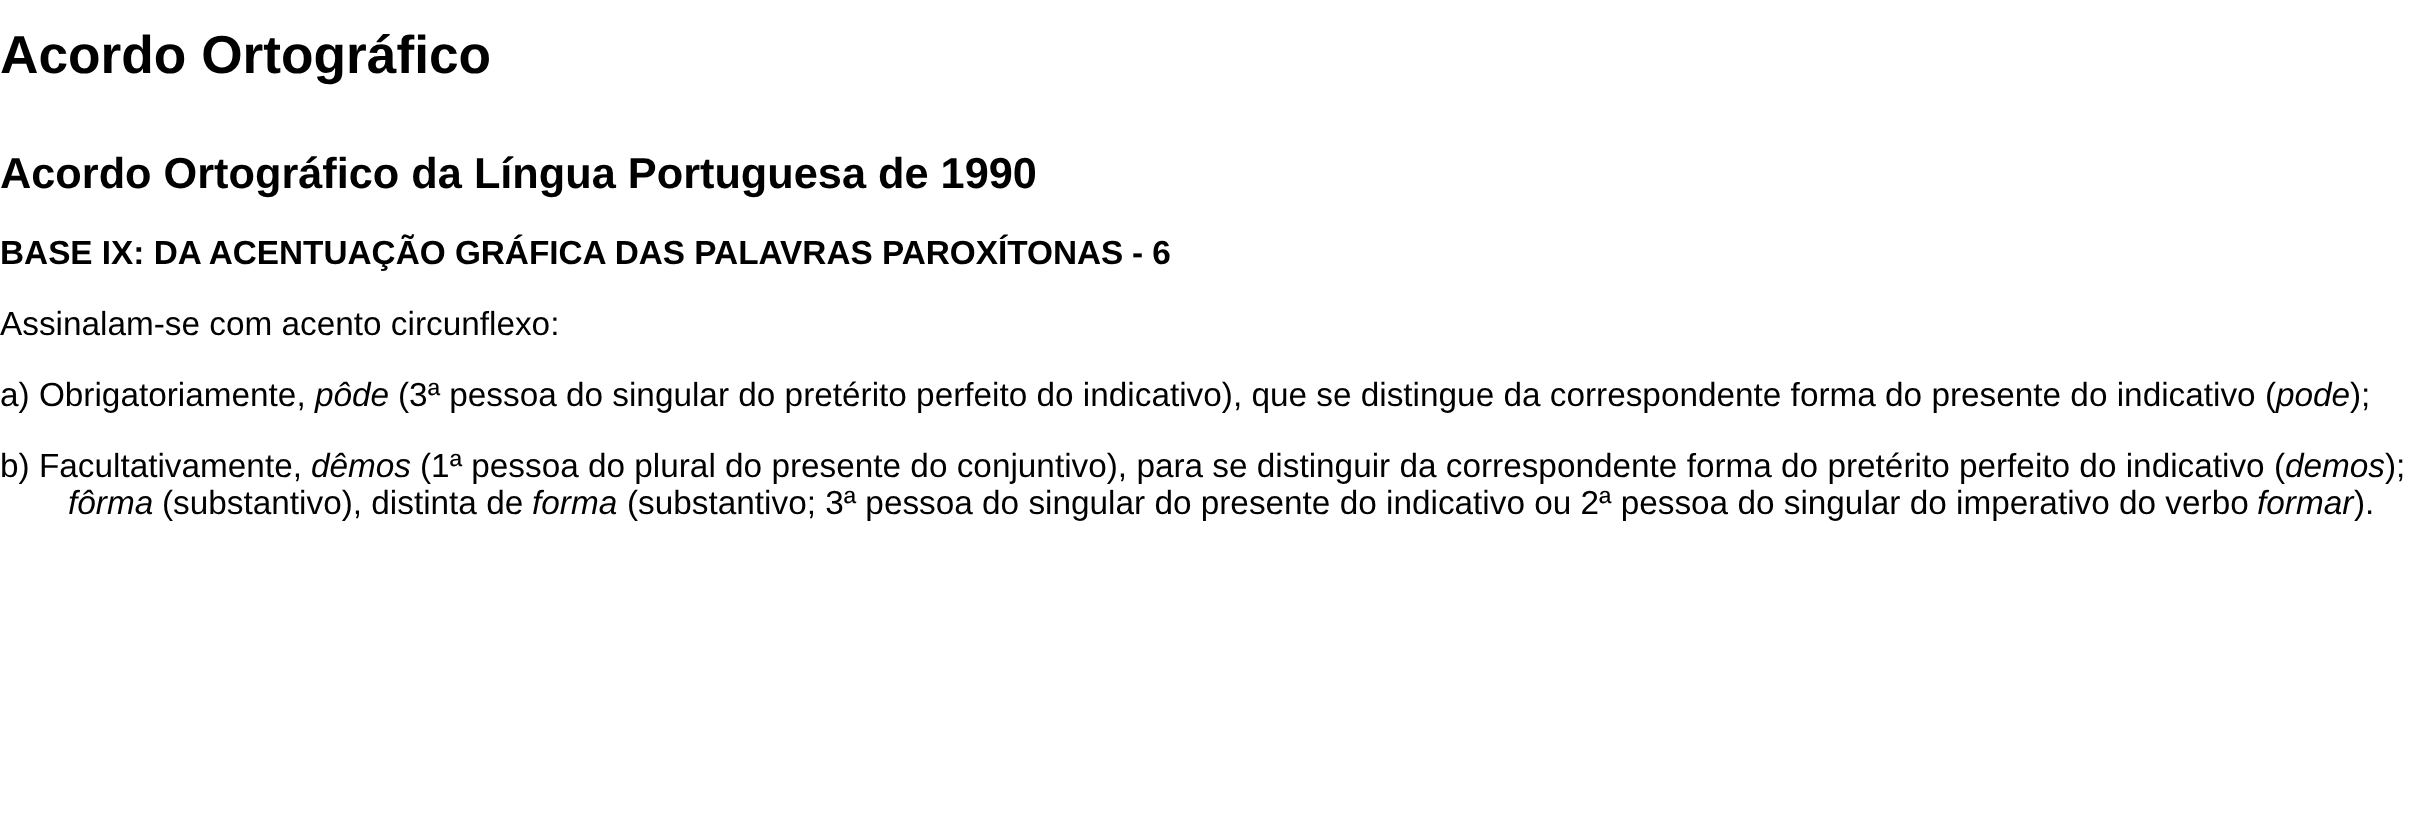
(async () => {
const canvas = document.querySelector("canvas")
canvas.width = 2433
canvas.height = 839
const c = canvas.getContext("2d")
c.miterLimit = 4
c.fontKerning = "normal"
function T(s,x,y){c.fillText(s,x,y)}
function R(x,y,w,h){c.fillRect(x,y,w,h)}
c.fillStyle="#fff"
R(0,0,2433,839)
c.font="bold 53.25px Liberation Sans"
c.fillStyle="#000"
T("Acordo Ortográfico",0,73)
c.font="bold 43.3px Liberation Sans"
T("Acordo Ortográfico da Língua Portuguesa de 1990",0,188)
c.font="bold 33.33px Liberation Sans"
T("BASE IX: DA ACENTUAÇÃO GRÁFICA DAS PALAVRAS PAROXÍTONAS",0,264)
T("- 6",1132,264)
c.font="33.33px Liberation Sans"
T("Assinalam-se com acento circunflexo:",0,335)
T("a) Obrigatoriamente,",0,406)
c.font="italic 33.33px Liberation Sans"
T("pôde",315,406)
c.font="33.33px Liberation Sans"
T("(3ª pessoa do singular do pretérito perfeito do indicativo), que se distingue da correspondente forma do presente do indicativo (",398,406)
c.font="italic 33.33px Liberation Sans"
T("pode",2276,406)
c.font="33.33px Liberation Sans"
T(");",2350,406)
T("b) Facultativamente,",0,477)
c.font="italic 33.33px Liberation Sans"
T("dêmos",311,477)
c.font="33.33px Liberation Sans"
T("(1ª pessoa do plural do presente do conjuntivo), para se distinguir da correspondente forma do pretérito perfeito do indicativo (",420,477)
c.font="italic 33.33px Liberation Sans"
T("demos",2285,477)
c.font="33.33px Liberation Sans"
T(");",2385,477)
c.font="italic 33.33px Liberation Sans"
T("fôrma",68,514)
c.font="33.33px Liberation Sans"
T("(substantivo), distinta de",162,514)
c.font="italic 33.33px Liberation Sans"
T("forma",532,514)
c.font="33.33px Liberation Sans"
T("(substantivo; 3ª pessoa do singular do presente do indicativo ou 2ª pessoa do singular do imperativo do verbo",627,514)
c.font="italic 33.33px Liberation Sans"
T("formar",2257,514)
c.font="33.33px Liberation Sans"
T(").",2354,514)
})()
